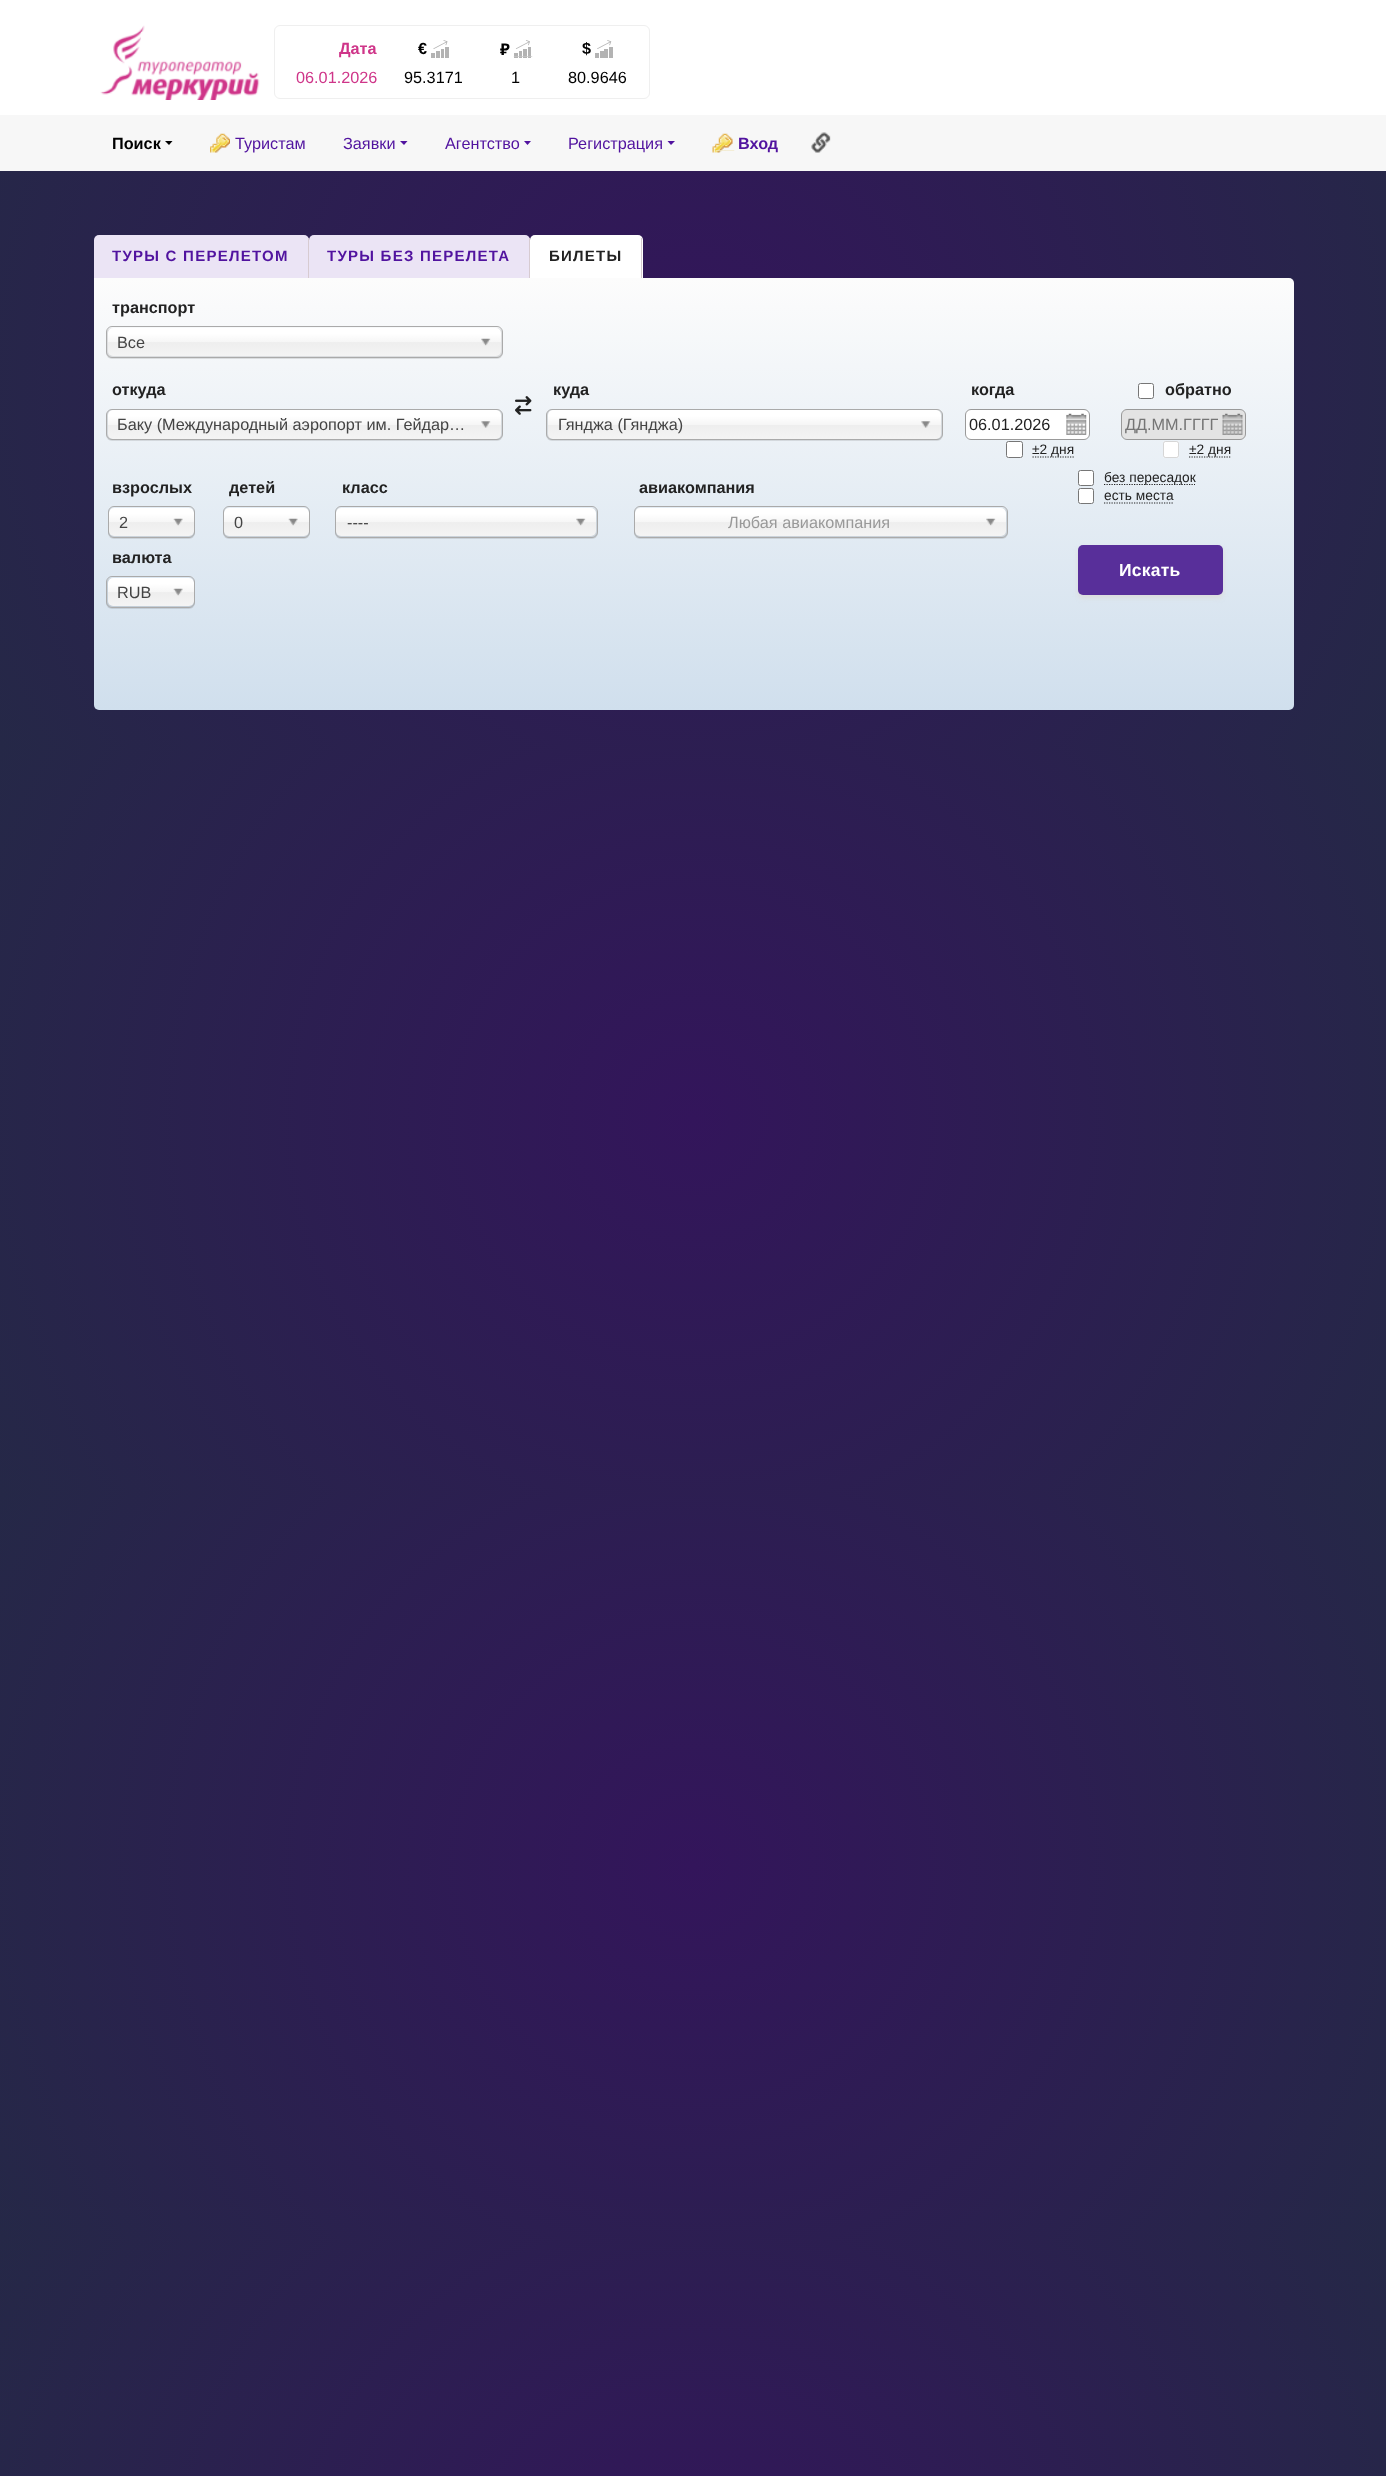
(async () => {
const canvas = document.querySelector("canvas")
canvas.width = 1386
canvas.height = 2476
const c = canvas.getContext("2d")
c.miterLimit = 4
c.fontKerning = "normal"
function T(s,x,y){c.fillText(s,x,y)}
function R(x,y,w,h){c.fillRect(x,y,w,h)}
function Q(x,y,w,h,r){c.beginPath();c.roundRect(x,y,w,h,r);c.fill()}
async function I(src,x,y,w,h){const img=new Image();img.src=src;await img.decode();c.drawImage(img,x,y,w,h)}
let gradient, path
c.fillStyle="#fff"
R(0,0,1386,2476)
gradient = c.createRadialGradient(693,373,0,693,373,787)
gradient.addColorStop(0,"#33155b")
gradient.addColorStop(1,"#252847")
c.fillStyle = gradient
R(0,171,1386,575)
gradient = c.createRadialGradient(693,1119,0,693,1119,787)
gradient.addColorStop(0,"#33155b")
gradient.addColorStop(1,"#252847")
c.fillStyle = gradient
R(0,746,1386,747)
gradient = c.createRadialGradient(693,1866,0,693,1866,787)
gradient.addColorStop(0,"#33155b")
gradient.addColorStop(1,"#252847")
c.fillStyle = gradient
R(0,1493,1386,746)
gradient = c.createRadialGradient(693,2612,0,693,2612,787)
gradient.addColorStop(0,"#33155b")
gradient.addColorStop(1,"#252847")
c.fillStyle = gradient
R(0,2239,1386,237)
await I("1.png",100,25,160,75)
c.beginPath()
c.roundRect(274.5,25.5,375,73,5.5)
c.strokeStyle="#efefef"
c.stroke()
c.font="bold 16.25px Liberation Sans"
c.fillStyle="#cf3589"
T("Дата",339,54)
c.fillStyle="#000"
T("€",418,54)
await I("2.png",431,40,18,18)
c.font="bold 16.25px Noto Sans"
T("₽",500,55)
await I("3.png",514,40,17,18)
c.font="bold 16.25px Liberation Sans"
c.fillStyle="#c7c7c7"
T("__",514,55)
c.fillStyle="#000"
T("$",582,54)
await I("4.png",595,40,18,18)
c.font="16.25px Liberation Sans"
c.fillStyle="#cf3589"
T("06.01.2026",296,83)
c.fillStyle="#000"
T("95.3171",404,83)
T("1",511,83)
T("80.9646",568,83)
c.fillStyle="#f7f7f7"
R(0,115,1386,56)
c.font="bold 16.25px Liberation Sans"
c.fillStyle="#000"
T("Поиск",112,149)
path = new Path2D("M165 141h7.5l-3.5 4z")
c.fill(path)
await I("5.png",210,133,20,20)
c.font="16.25px Liberation Sans"
c.fillStyle="#51139f"
T("Туристам",235,149)
T("Заявки",343,149)
path = new Path2D("M400 141h7.5l-3.5 4z")
c.fill(path)
T("Агентство",445,149)
path = new Path2D("M524 141h7l-3.5 4z")
c.fill(path)
T("Регистрация",568,149)
path = new Path2D("M667.5 141h7.5l-4 4z")
c.fill(path)
await I("6.png",712,133,21,20)
c.font="bold 16.25px Liberation Sans"
c.fillStyle="#f1e7c5"
T("__",716,149)
c.fillStyle="#51139f"
T("Вход",738,149)
await I("7.png",811,132,20,21)
c.fillStyle="#ebe4f5"
c.beginPath()
c.roundRect(94,235,215,43,[5,5,0,0])
c.fill()
c.fillStyle="#d7cbd1"
R(308,238,1,40)
c.letterSpacing="1.25px"
c.font="bold 15px Liberation Sans"
c.fillStyle="#51139f"
T("ТУРЫ С ПЕРЕЛЕТОМ",112,261)
c.fillStyle="#ebe4f5"
c.beginPath()
c.roundRect(309,235,221,43,[5,5,0,0])
c.fill()
c.fillStyle="#d7cbd1"
R(529,238,1,40)
c.fillStyle="#51139f"
T("ТУРЫ БЕЗ ПЕРЕЛЕТА",327,261)
c.fillStyle="#fff"
c.beginPath()
c.roundRect(530,235,113,43,[5,5,0,0])
c.fill()
c.fillStyle="#d7cbd1"
R(641,238,1,40)
c.fillStyle="#222"
T("БИЛЕТЫ",549,261)
gradient = c.createLinearGradient(694,710,694,278)
gradient.addColorStop(0,"#d0dfed")
gradient.addColorStop(1,"#fcfcfc")
c.fillStyle = gradient
c.beginPath()
c.roundRect(94,278,1200,432,[0,5,5,5])
c.fill()
c.letterSpacing="0px"
c.font="bold 16.25px Liberation Sans"
c.fillStyle="#222"
T("транспорт",112,313)
c.fillStyle="#0000001a"
c.filter="blur(0.5px)"
c.beginPath()
c.roundRect(106,328,397,31,6)
c.fill()
c.filter="none"
gradient = c.createLinearGradient(304,328,304,356)
gradient.addColorStop(.2,"#fff")
gradient.addColorStop(.5,"#f6f6f6")
gradient.addColorStop(.52,"#eee")
gradient.addColorStop(1,"#f4f4f4")
c.fillStyle = gradient
Q(108,328,393,28,5)
c.beginPath()
c.roundRect(106.5,326.5,396,31,5.5)
c.strokeStyle="#aaa"
c.stroke()
c.font="16.25px Liberation Sans"
c.fillStyle="#444"
T("Все",117,348)
await I("8.png",481,338,10,8)
c.font="bold 16.25px Liberation Sans"
c.fillStyle="#222"
T("откуда",112,395)
c.fillStyle="#0000001a"
c.filter="blur(0.5px)"
c.beginPath()
c.roundRect(106,410,397,31,6)
c.fill()
c.filter="none"
gradient = c.createLinearGradient(304,410,304,439)
gradient.addColorStop(.2,"#fff")
gradient.addColorStop(.5,"#f6f6f6")
gradient.addColorStop(.52,"#eee")
gradient.addColorStop(1,"#f4f4f4")
c.fillStyle = gradient
Q(108,410,393,29,5)
c.beginPath()
c.roundRect(106.5,409.5,396,30,5.5)
c.stroke()
c.font="16.25px Liberation Sans"
c.fillStyle="#444"
T("Баку (Международный аэропорт им. Гейдар…",117,430)
await I("9.png",481,421,10,7)
await I("10.png",515,396,17,19)
c.font="bold 16.25px Liberation Sans"
c.fillStyle="#222"
T("куда",553,395)
c.fillStyle="#0000001a"
c.filter="blur(0.5px)"
c.beginPath()
c.roundRect(546,410,397,31,6)
c.fill()
c.filter="none"
gradient = c.createLinearGradient(744,410,744,439)
gradient.addColorStop(.2,"#fff")
gradient.addColorStop(.5,"#f6f6f6")
gradient.addColorStop(.52,"#eee")
gradient.addColorStop(1,"#f4f4f4")
c.fillStyle = gradient
Q(548,410,393,29,5)
c.beginPath()
c.roundRect(546.5,409.5,396,30,5.5)
c.stroke()
c.font="16.25px Liberation Sans"
c.fillStyle="#444"
T("Гянджа (Гянджа)",558,430)
await I("11.png",921,421,10,7)
c.font="bold 16.25px Liberation Sans"
c.fillStyle="#222"
T("когда",971,395)
c.fillStyle="#fff"
c.beginPath()
c.roundRect(965.5,409.5,124,30,5.5)
c.fill()
c.strokeStyle="#999"
c.stroke()
c.font="16.25px Liberation Sans"
c.fillStyle="#222"
T("06.01.2026",969,430)
await I("12.png",1066,413,21,22)
c.fillStyle="#fff"
c.beginPath()
c.roundRect(1006.5,441.5,16,16,2)
c.fill()
c.strokeStyle="#767676"
c.stroke()
path = new Path2D("M1032.5 457h42.5")
c.strokeStyle="#222"
c.lineWidth=1.2
c.setLineDash([1.25,1.25])
c.stroke(path)
c.font="13.75px Liberation Sans"
c.fillStyle="#222"
T("±2 дня",1032,454)
c.fillStyle="#fff"
c.beginPath()
c.roundRect(1138.5,383.5,15,15,2)
c.fill()
c.strokeStyle="#767676"
c.lineWidth=1
c.setLineDash([])
c.stroke()
c.font="bold 16.25px Liberation Sans"
c.fillStyle="#222"
T("обратно",1165,395)
c.fillStyle="#e3e3e3"
c.beginPath()
c.roundRect(1121.5,409.5,124,30,5.5)
c.fill()
c.strokeStyle="#999"
c.stroke()
c.font="16.25px Liberation Sans"
c.fillStyle="#757575"
T("ДД.ММ.ГГГГ",1125,430)
await I("13.png",1222,413,21,22)
c.fillStyle="#fff"
Q(1163,441,16,17,2.5)
c.beginPath()
c.roundRect(1163.5,441.5,15,16,2)
c.strokeStyle="#7676764d"
c.stroke()
path = new Path2D("M1189 457h42")
c.strokeStyle="#222"
c.lineWidth=1.2
c.setLineDash([1.25,1.25])
c.stroke(path)
c.font="13.75px Liberation Sans"
c.fillStyle="#222"
T("±2 дня",1189,454)
c.font="bold 16.25px Liberation Sans"
T("взрослых",112,493)
c.fillStyle="#0000001a"
c.filter="blur(0.5px)"
c.beginPath()
c.roundRect(108,508,87,31,6)
c.fill()
c.filter="none"
gradient = c.createLinearGradient(151,508,151,536)
gradient.addColorStop(.2,"#fff")
gradient.addColorStop(.5,"#f6f6f6")
gradient.addColorStop(.52,"#eee")
gradient.addColorStop(1,"#f4f4f4")
c.fillStyle = gradient
Q(109,508,85,28,5)
c.beginPath()
c.roundRect(108.5,506.5,86,31,5.5)
c.strokeStyle="#aaa"
c.lineWidth=1
c.setLineDash([])
c.stroke()
c.font="16.25px Liberation Sans"
c.fillStyle="#444"
T("2",119,528)
await I("14.png",173,518,10,8)
c.font="bold 16.25px Liberation Sans"
c.fillStyle="#222"
T("детей",229,493)
c.fillStyle="#0000001a"
c.filter="blur(0.5px)"
c.beginPath()
c.roundRect(223,508,87,31,6)
c.fill()
c.filter="none"
gradient = c.createLinearGradient(266,508,266,536)
gradient.addColorStop(.2,"#fff")
gradient.addColorStop(.5,"#f6f6f6")
gradient.addColorStop(.52,"#eee")
gradient.addColorStop(1,"#f4f4f4")
c.fillStyle = gradient
Q(224,508,85,28,5)
c.beginPath()
c.roundRect(223.5,506.5,86,31,5.5)
c.stroke()
c.font="16.25px Liberation Sans"
c.fillStyle="#444"
T("0",234,528)
await I("14.png",288,518,10,8)
c.font="bold 16.25px Liberation Sans"
c.fillStyle="#222"
T("класс",342,493)
c.fillStyle="#0000001a"
c.filter="blur(0.5px)"
c.beginPath()
c.roundRect(335,508,263,31,6)
c.fill()
c.filter="none"
gradient = c.createLinearGradient(466,508,466,536)
gradient.addColorStop(.2,"#fff")
gradient.addColorStop(.5,"#f6f6f6")
gradient.addColorStop(.52,"#eee")
gradient.addColorStop(1,"#f4f4f4")
c.fillStyle = gradient
Q(336,508,260,28,5)
c.beginPath()
c.roundRect(335.5,506.5,262,31,5.5)
c.stroke()
c.font="16.25px Liberation Sans"
c.fillStyle="#444"
T("----",347,528)
await I("15.png",576,518,10,8)
c.font="bold 16.25px Liberation Sans"
c.fillStyle="#222"
T("авиакомпания",639,493)
c.fillStyle="#0000001a"
c.filter="blur(0.5px)"
c.beginPath()
c.roundRect(634,508,374,31,6)
c.fill()
c.filter="none"
gradient = c.createLinearGradient(821,508,821,536)
gradient.addColorStop(.2,"#fff")
gradient.addColorStop(.5,"#f6f6f6")
gradient.addColorStop(.52,"#eee")
gradient.addColorStop(1,"#f4f4f4")
c.fillStyle = gradient
Q(635,508,371,28,5)
c.beginPath()
c.roundRect(634.5,506.5,373,31,5.5)
c.stroke()
c.font="16.25px Liberation Sans"
c.fillStyle="#999"
T("Любая авиакомпания",728,528)
await I("15.png",986,518,10,8)
c.font="bold 16.25px Liberation Sans"
c.fillStyle="#222"
T("валюта",112,563)
c.fillStyle="#0000001a"
c.filter="blur(0.5px)"
c.beginPath()
c.roundRect(106,578,89,31,6)
c.fill()
c.filter="none"
gradient = c.createLinearGradient(151,578,151,606)
gradient.addColorStop(.2,"#fff")
gradient.addColorStop(.5,"#f6f6f6")
gradient.addColorStop(.52,"#eee")
gradient.addColorStop(1,"#f4f4f4")
c.fillStyle = gradient
Q(108,578,86,28,5)
c.beginPath()
c.roundRect(106.5,576.5,88,31,5.5)
c.stroke()
c.font="16.25px Liberation Sans"
c.fillStyle="#444"
T("RUB",117,598)
await I("16.png",173,588,10,8)
c.fillStyle="#fff"
c.beginPath()
c.roundRect(1078.5,470.5,15,15,2)
c.fill()
c.strokeStyle="#767676"
c.stroke()
path = new Path2D("M1104 484.5h91")
c.strokeStyle="#222"
c.lineWidth=1.2
c.setLineDash([1.25,1.25])
c.stroke(path)
c.font="13.75px Liberation Sans"
c.fillStyle="#222"
T("без пересадок",1104,482)
c.fillStyle="#fff"
c.beginPath()
c.roundRect(1078.5,488.5,15,15,2)
c.fill()
c.strokeStyle="#767676"
c.lineWidth=1
c.setLineDash([])
c.stroke()
c.fillStyle="#222"
T("есть места",1104,500)
path = new Path2D("M1104 503h70")
c.strokeStyle="#222"
c.lineWidth=1.2
c.setLineDash([1.25,1.25])
c.stroke(path)
c.fillStyle="#dbdbdb"
c.filter="blur(2.5px)"
c.beginPath()
c.roundRect(1078,548,145,50,5)
c.fill()
c.filter="none"
c.fillStyle="#582f9a"
Q(1078,545,145,50,5)
c.letterSpacing="0.25px"
c.font="bold 17.5px Liberation Sans"
c.fillStyle="#fff"
T("Искать",1119,576)
})()
